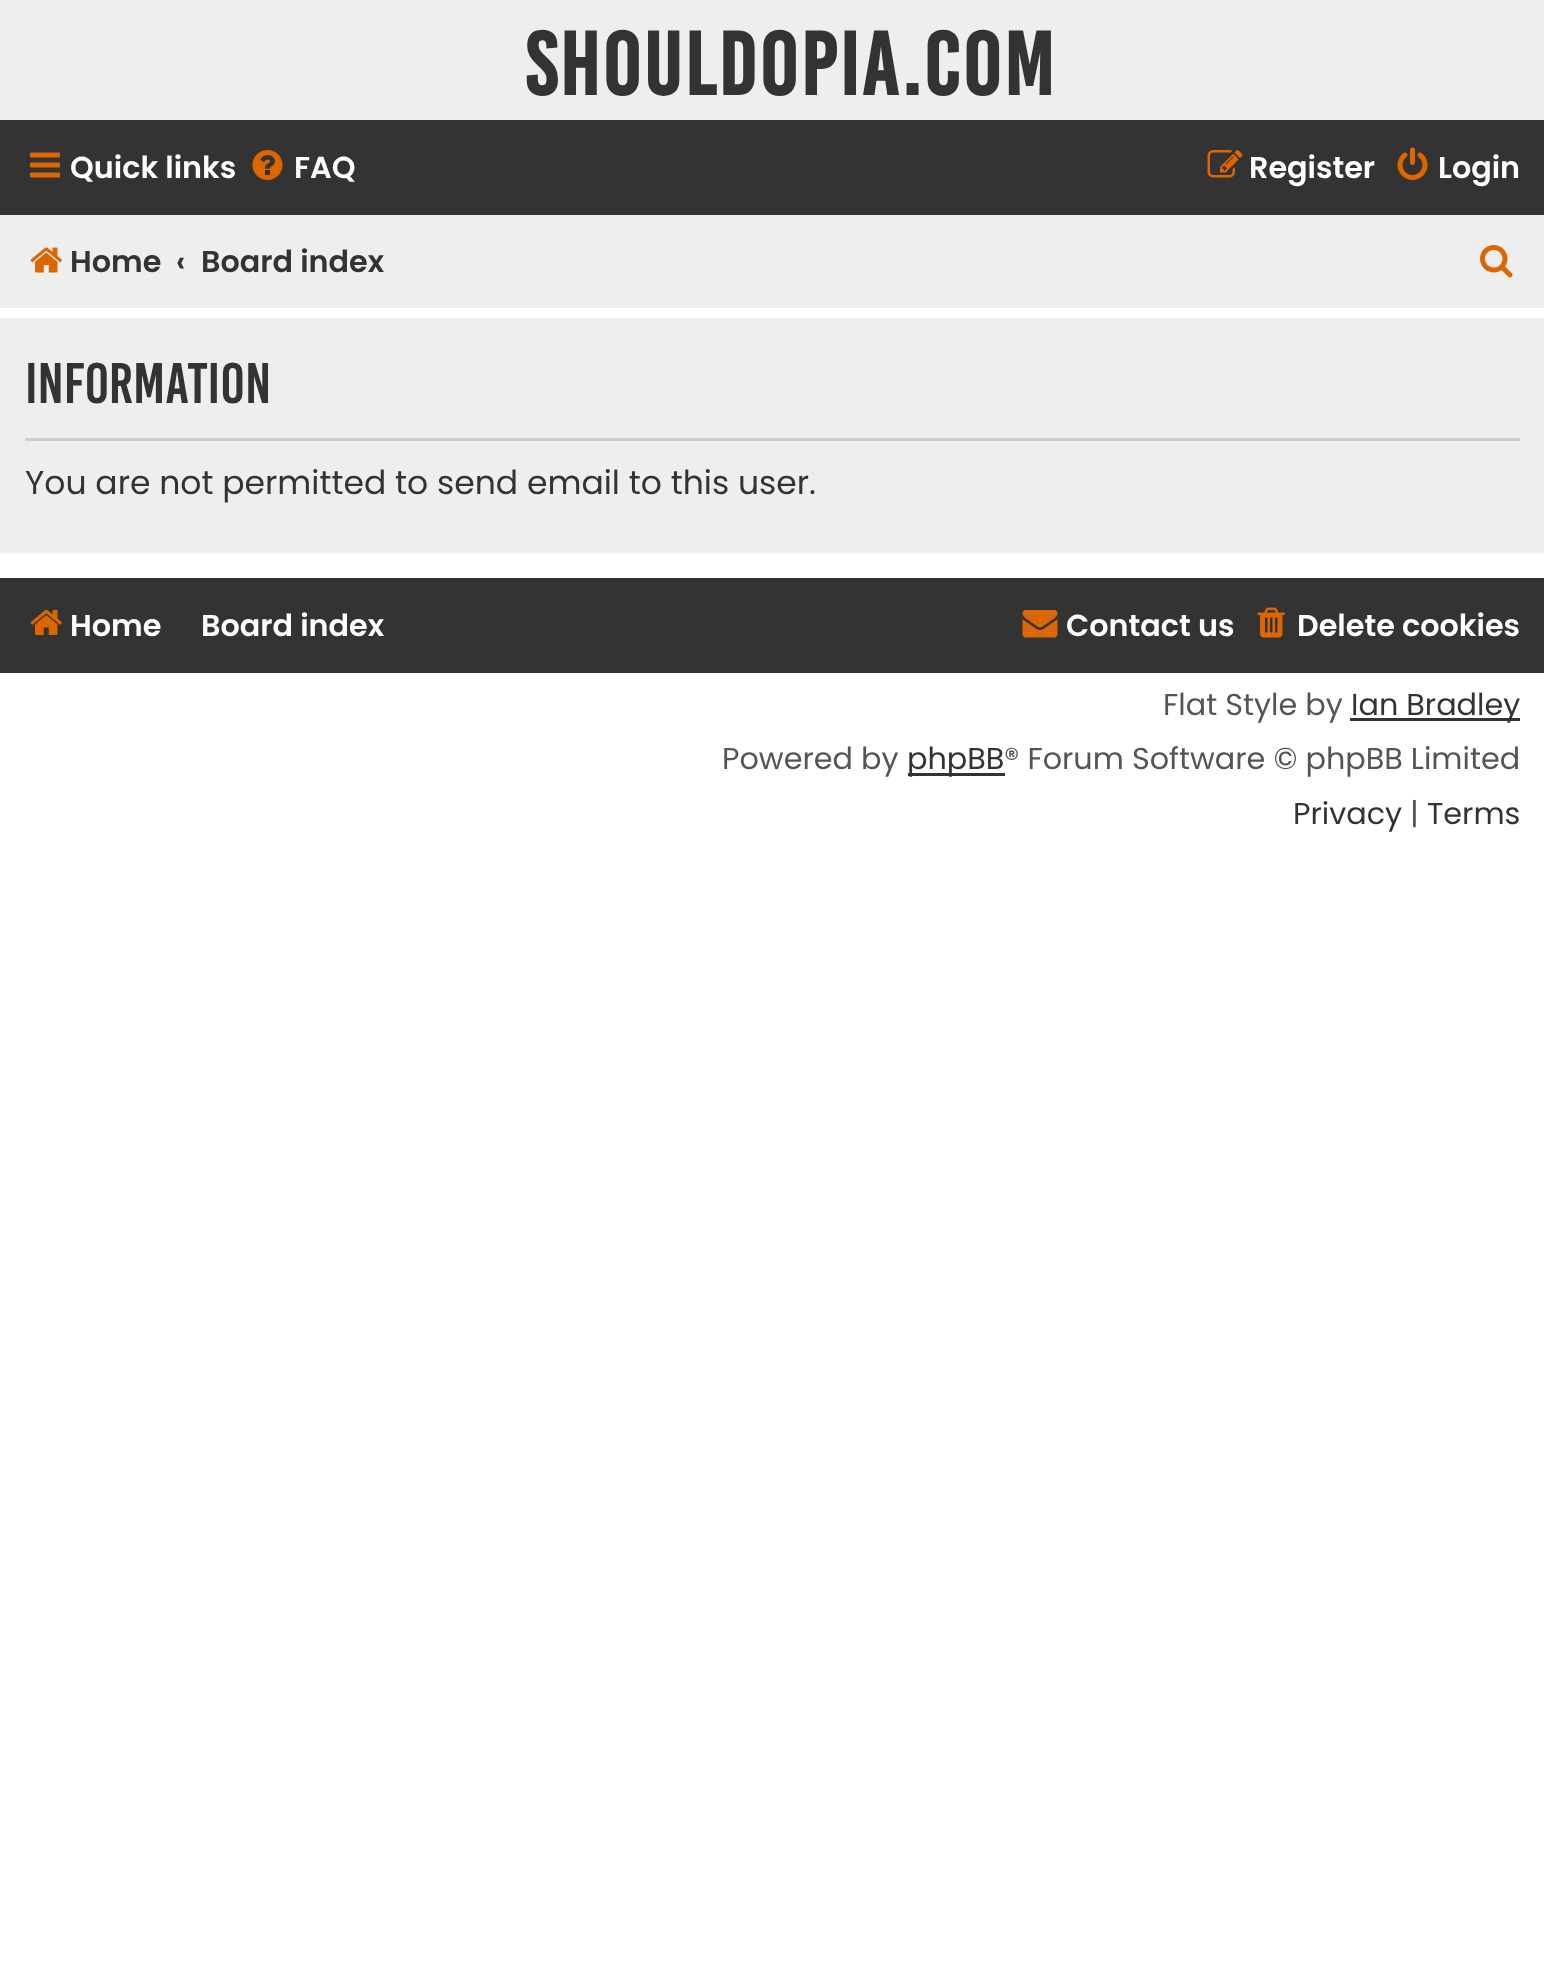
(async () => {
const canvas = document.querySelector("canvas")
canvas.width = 1544
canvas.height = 1967
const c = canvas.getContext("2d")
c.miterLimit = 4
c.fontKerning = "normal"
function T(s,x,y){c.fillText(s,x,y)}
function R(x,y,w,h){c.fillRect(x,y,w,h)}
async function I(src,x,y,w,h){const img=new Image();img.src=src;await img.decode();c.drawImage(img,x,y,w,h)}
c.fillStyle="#fff"
R(0,0,1544,1967)
c.fillStyle="#eee"
R(0,0,1544,120)
c.letterSpacing="2.5px"
c.font="bold 68.75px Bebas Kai"
c.fillStyle="#333"
T("ShouldOpia.com",525,95)
R(0,120,1544,95)
await I("1.png",30,152,30,26)
c.letterSpacing="0px"
c.font="600 30.25px Poppins"
c.fillStyle="#fff"
T("Quick links",70,178)
await I("2.png",252,150,31,30)
T("FAQ",294,178)
await I("3.png",1207,150,36,28)
T("Register",1249,178)
await I("4.png",1397,147,31,33)
T("Login",1438,178)
c.fillStyle="#eee"
R(0,215,1544,93)
await I("5.png",30,247,32,26)
c.fillStyle="#333"
T("Home",70,272)
T("‹",176,272)
T("Board index",201,272)
await I("6.png",1480,245,33,33)
c.fillStyle="#eee"
R(0,318,1544,235)
c.fillStyle="#ccc"
R(25,438,1495,3)
c.font="44px Bebas Kai"
c.fillStyle="#333"
T("Information",25,403)
c.font="33px Poppins"
T("You are not permitted to send email to this user.",25,494)
R(0,578,1544,95)
await I("7.png",30,610,32,25)
c.font="600 30.25px Poppins"
c.fillStyle="#fff"
T("Home",70,636)
T("Board index",201,636)
await I("8.png",1022,610,36,28)
T("Contact us",1066,636)
await I("9.png",1257,607,28,31)
T("Delete cookies",1297,636)
c.font="30.25px Poppins"
c.fillStyle="#555"
T("Flat Style by",1163,715)
c.fillStyle="#333"
R(1350,718,170,3)
T("Ian Bradley",1351,715)
c.fillStyle="#555"
T("Powered by",722,769)
c.fillStyle="#333"
R(908,773,97,3)
T("phpBB",907,769)
c.fillStyle="#555"
T("® Forum Software © phpBB Limited",1004,769)
c.fillStyle="#333"
T("Privacy",1293,824)
c.fillStyle="#555"
T("|",1410,824)
c.fillStyle="#333"
T("Terms",1427,824)
})()
